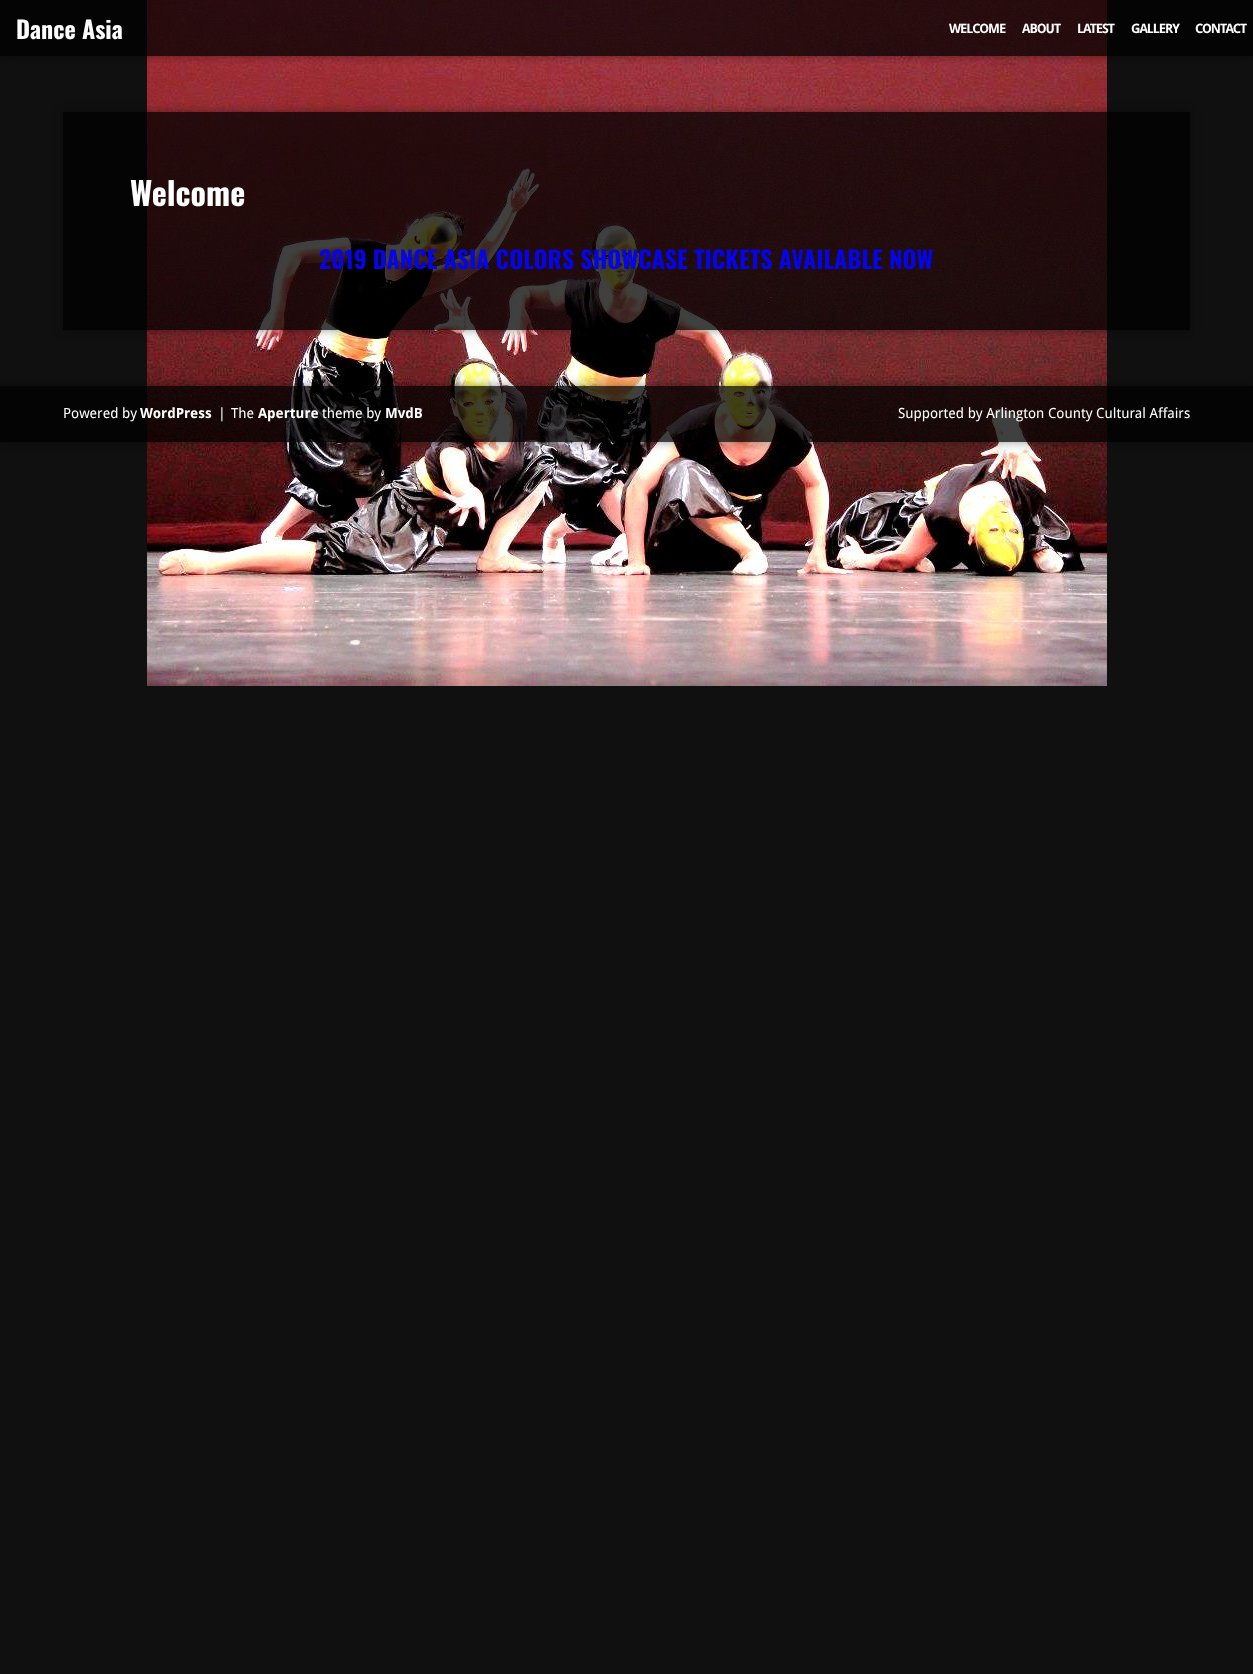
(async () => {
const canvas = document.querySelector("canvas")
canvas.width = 1253
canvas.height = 1674
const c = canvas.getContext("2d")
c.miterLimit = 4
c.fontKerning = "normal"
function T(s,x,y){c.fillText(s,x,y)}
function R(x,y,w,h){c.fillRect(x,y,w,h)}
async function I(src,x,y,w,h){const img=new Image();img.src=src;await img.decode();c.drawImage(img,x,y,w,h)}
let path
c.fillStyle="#101010"
R(0,0,1253,1674)
await I("1.png",147,0,960,686)
c.save()
c.beginPath()
c.rect(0,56,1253,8)
c.clip()
c.fillStyle="#00000066"
c.filter="blur(5px)"
c.beginPath()
c.rect(0,0,1253,56)
c.fill()
c.filter="none"
c.restore()
c.fillStyle="#000000bf"
R(0,0,1253,56)
c.font="bold 24px Oswald"
c.fillStyle="#fff"
T("Dance Asia",16,39)
c.letterSpacing="-1px"
c.font="bold 13px Droid Sans"
T("WELCOME",949,33)
T("ABOUT",1022,33)
T("LATEST",1077,33)
T("GALLERY",1131,33)
T("CONTACT",1195,33)
c.save()
path = new Path2D("M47 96h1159v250h-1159zm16 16h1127v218h-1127z")
c.clip(path,"evenodd")
c.fillStyle="#00000066"
c.filter="blur(5px)"
c.beginPath()
c.rect(63,112,1127,218)
c.fill()
c.filter="none"
c.restore()
c.fillStyle="#000000bf"
R(63,112,1127,218)
c.letterSpacing="0px"
c.font="bold 32px Oswald"
c.fillStyle="#fff"
T("Welcome",130,206)
c.font="bold 24px Oswald"
c.fillStyle="#0505e8"
T("2019 DANCE ASIA COLORS SHOWCASE TICKETS AVAILABLE NOW",319,269)
c.save()
path = new Path2D("M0 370h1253v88h-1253zm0 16h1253v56h-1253z")
c.clip(path,"evenodd")
c.fillStyle="#00000066"
c.filter="blur(5px)"
c.beginPath()
c.rect(0,386,1253,56)
c.fill()
c.filter="none"
c.restore()
c.fillStyle="#000000bf"
R(0,386,1253,56)
c.font="14px Droid Sans"
c.fillStyle="#fff"
T("Powered by",63,418)
c.font="bold 14px Droid Sans"
T("WordPress",140,418)
c.font="14px Droid Sans"
T("|",218,418)
T("The",231,418)
c.font="bold 14px Droid Sans"
T("Aperture",258,418)
c.font="14px Droid Sans"
T("theme by",322,418)
c.font="bold 14px Droid Sans"
T("MvdB",385,418)
c.font="14px Droid Sans"
T("Supported by Arlington County Cultural Affairs",898,418)
})()
